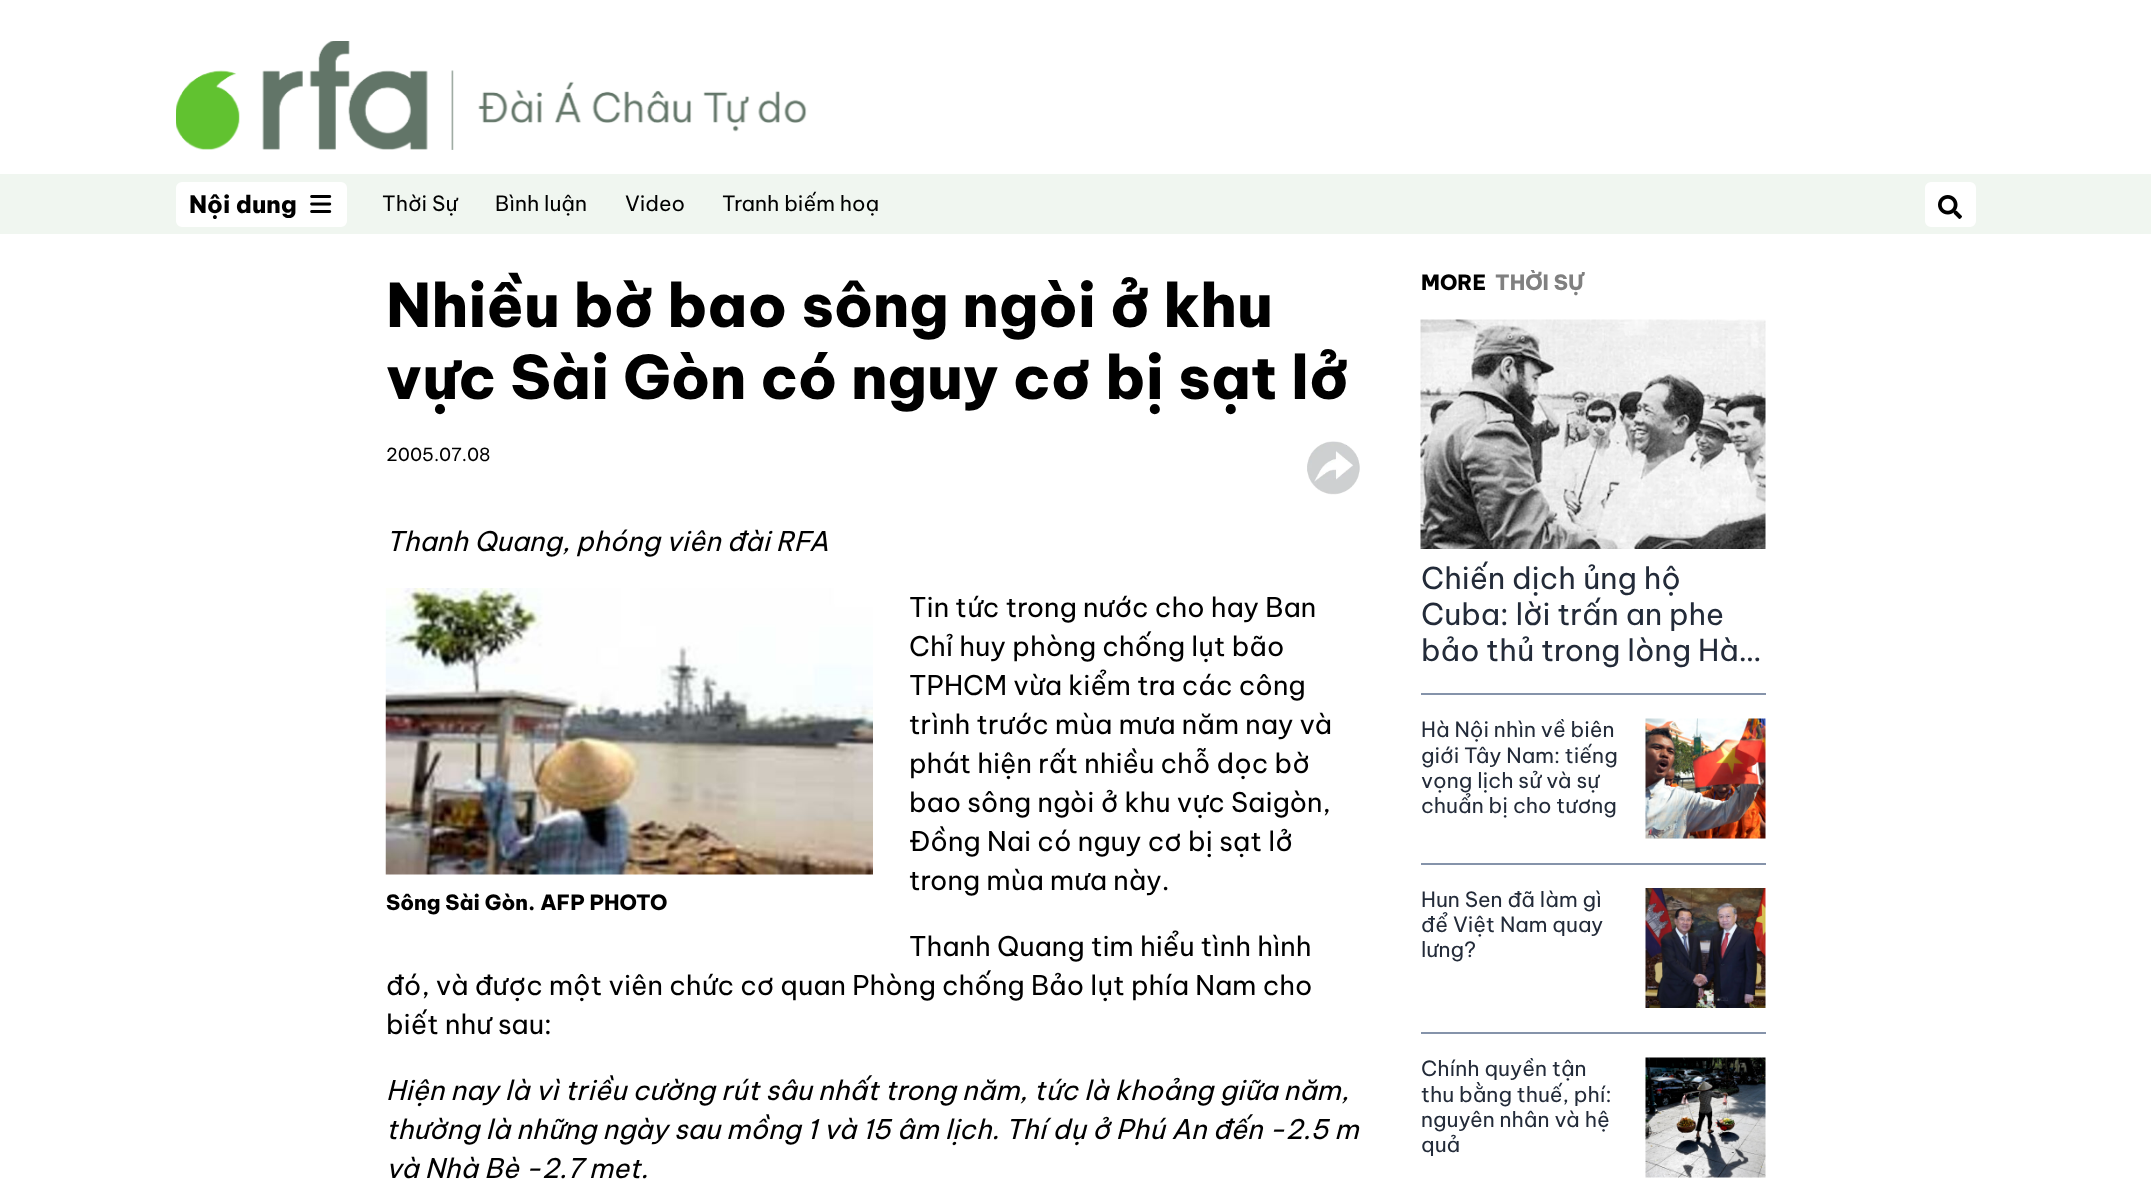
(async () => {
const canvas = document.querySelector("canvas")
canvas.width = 2151
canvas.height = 1202
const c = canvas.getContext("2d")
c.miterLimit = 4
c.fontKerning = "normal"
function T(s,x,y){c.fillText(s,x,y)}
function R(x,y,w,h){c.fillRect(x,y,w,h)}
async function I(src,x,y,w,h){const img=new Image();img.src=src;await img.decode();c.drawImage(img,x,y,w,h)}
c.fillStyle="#fff"
R(0,0,2151,1202)
await I("1.png",176,41,631,109)
c.fillStyle="#f0f6f0"
R(0,174,2151,60)
c.fillStyle="#fff"
c.beginPath()
c.roundRect(177,183,169,43,5)
c.fill()
c.strokeStyle="#fff"
c.lineWidth=2
c.stroke()
c.font="800 24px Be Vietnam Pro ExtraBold"
c.fillStyle="#000"
T("Nội dung",189,213)
await I("2.png",310,195,22,18)
c.font="21px Be Vietnam Pro"
T("Thời Sự",382,211)
T("Bình luận",495,211)
T("Video",625,211)
T("Tranh biếm hoạ",722,211)
c.fillStyle="#fff"
c.beginPath()
c.roundRect(1926,183,49,43,5)
c.fill()
c.stroke()
await I("3.png",1938,195,24,24)
c.font="800 60px Be Vietnam Pro ExtraBold"
c.fillStyle="#000"
T("Nhiều bờ bao sông ngòi ở khu",386,327)
T("vực Sài Gòn có nguy cơ bị sạt lở",386,399)
c.font="18px Be Vietnam Pro"
T("2005.07.08",386,461)
await I("4.png",1307,441,53,54)
c.font="italic 27px Be Vietnam Pro"
T("Thanh Quang, phóng viên đài RFA",386,551)
c.font="27px Be Vietnam Pro"
T("Tin tức trong nước cho hay Ban",909,617)
T("Chỉ huy phòng chống lụt bão",909,656)
T("TPHCM vừa kiểm tra các công",909,695)
T("trình trước mùa mưa năm nay và",909,734)
T("phát hiện rất nhiều chỗ dọc bờ",909,773)
T("bao sông ngòi ở khu vực Saigòn,",909,812)
T("Đồng Nai có nguy cơ bị sạt lở",909,851)
T("trong mùa mưa này.",909,890)
await I("5.png",385,588,488,287)
c.font="800 21px Be Vietnam Pro ExtraBold"
T("Sông Sài Gòn. AFP PHOTO",386,910)
c.font="27px Be Vietnam Pro"
T("Thanh Quang tim hiểu tình hình",909,956)
T("đó, và được một viên chức cơ quan Phòng chống Bảo lụt phía Nam cho",386,995)
T("biết như sau:",386,1034)
c.font="italic 27px Be Vietnam Pro"
T("Hiện nay là vì triều cường rút sâu nhất trong năm, tức là khoảng giữa năm,",386,1100)
T("thường là những ngày sau mồng 1 và 15 âm lịch. Thí dụ ở Phú An đến -2.5 m",386,1139)
T("và Nhà Bè -2.7 met.",386,1178)
c.font="800 21px Be Vietnam Pro ExtraBold"
T("MORE",1421,290)
c.save()
c.beginPath()
c.rect(1421,270,345,26)
c.clip()
c.fillStyle="#808080"
T("THỜI SỰ",1495,290)
c.restore()
await I("6.png",1420,319,346,230)
c.font="30px Be Vietnam Pro"
c.fillStyle="#232b39"
T("Chiến dịch ủng hộ",1421,589)
T("Cuba: lời trấn an phe",1421,625)
T("bảo thủ trong lòng Hà…",1421,661)
c.fillStyle="#8593aa"
R(1421,693,345,2)
c.save()
c.beginPath()
c.rect(1421,719,201,100)
c.clip()
c.font="21px Be Vietnam Pro"
c.fillStyle="#232b39"
T("Hà Nội nhìn về biên",1421,737)
c.restore()
c.font="21px Be Vietnam Pro"
c.fillStyle="#232b39"
T("giới Tây Nam: tiếng",1421,763)
T("vọng lịch sử và sự",1421,788)
T("chuẩn bị cho tương",1421,813)
await I("7.png",1645,718,121,121)
c.fillStyle="#8593aa"
R(1421,863,345,2)
c.fillStyle="#232b39"
T("Hun Sen đã làm gì",1421,907)
T("để Việt Nam quay",1421,932)
T("lưng?",1421,957)
await I("8.png",1645,888,121,120)
c.fillStyle="#8593aa"
R(1421,1032,345,2)
c.save()
c.beginPath()
c.rect(1421,1058,201,100)
c.clip()
c.fillStyle="#232b39"
T("Chính quyền tận",1421,1076)
c.restore()
c.fillStyle="#232b39"
T("thu bằng thuế, phí:",1421,1102)
T("nguyên nhân và hệ",1421,1127)
T("quả",1421,1152)
await I("9.png",1645,1057,121,121)
})()
